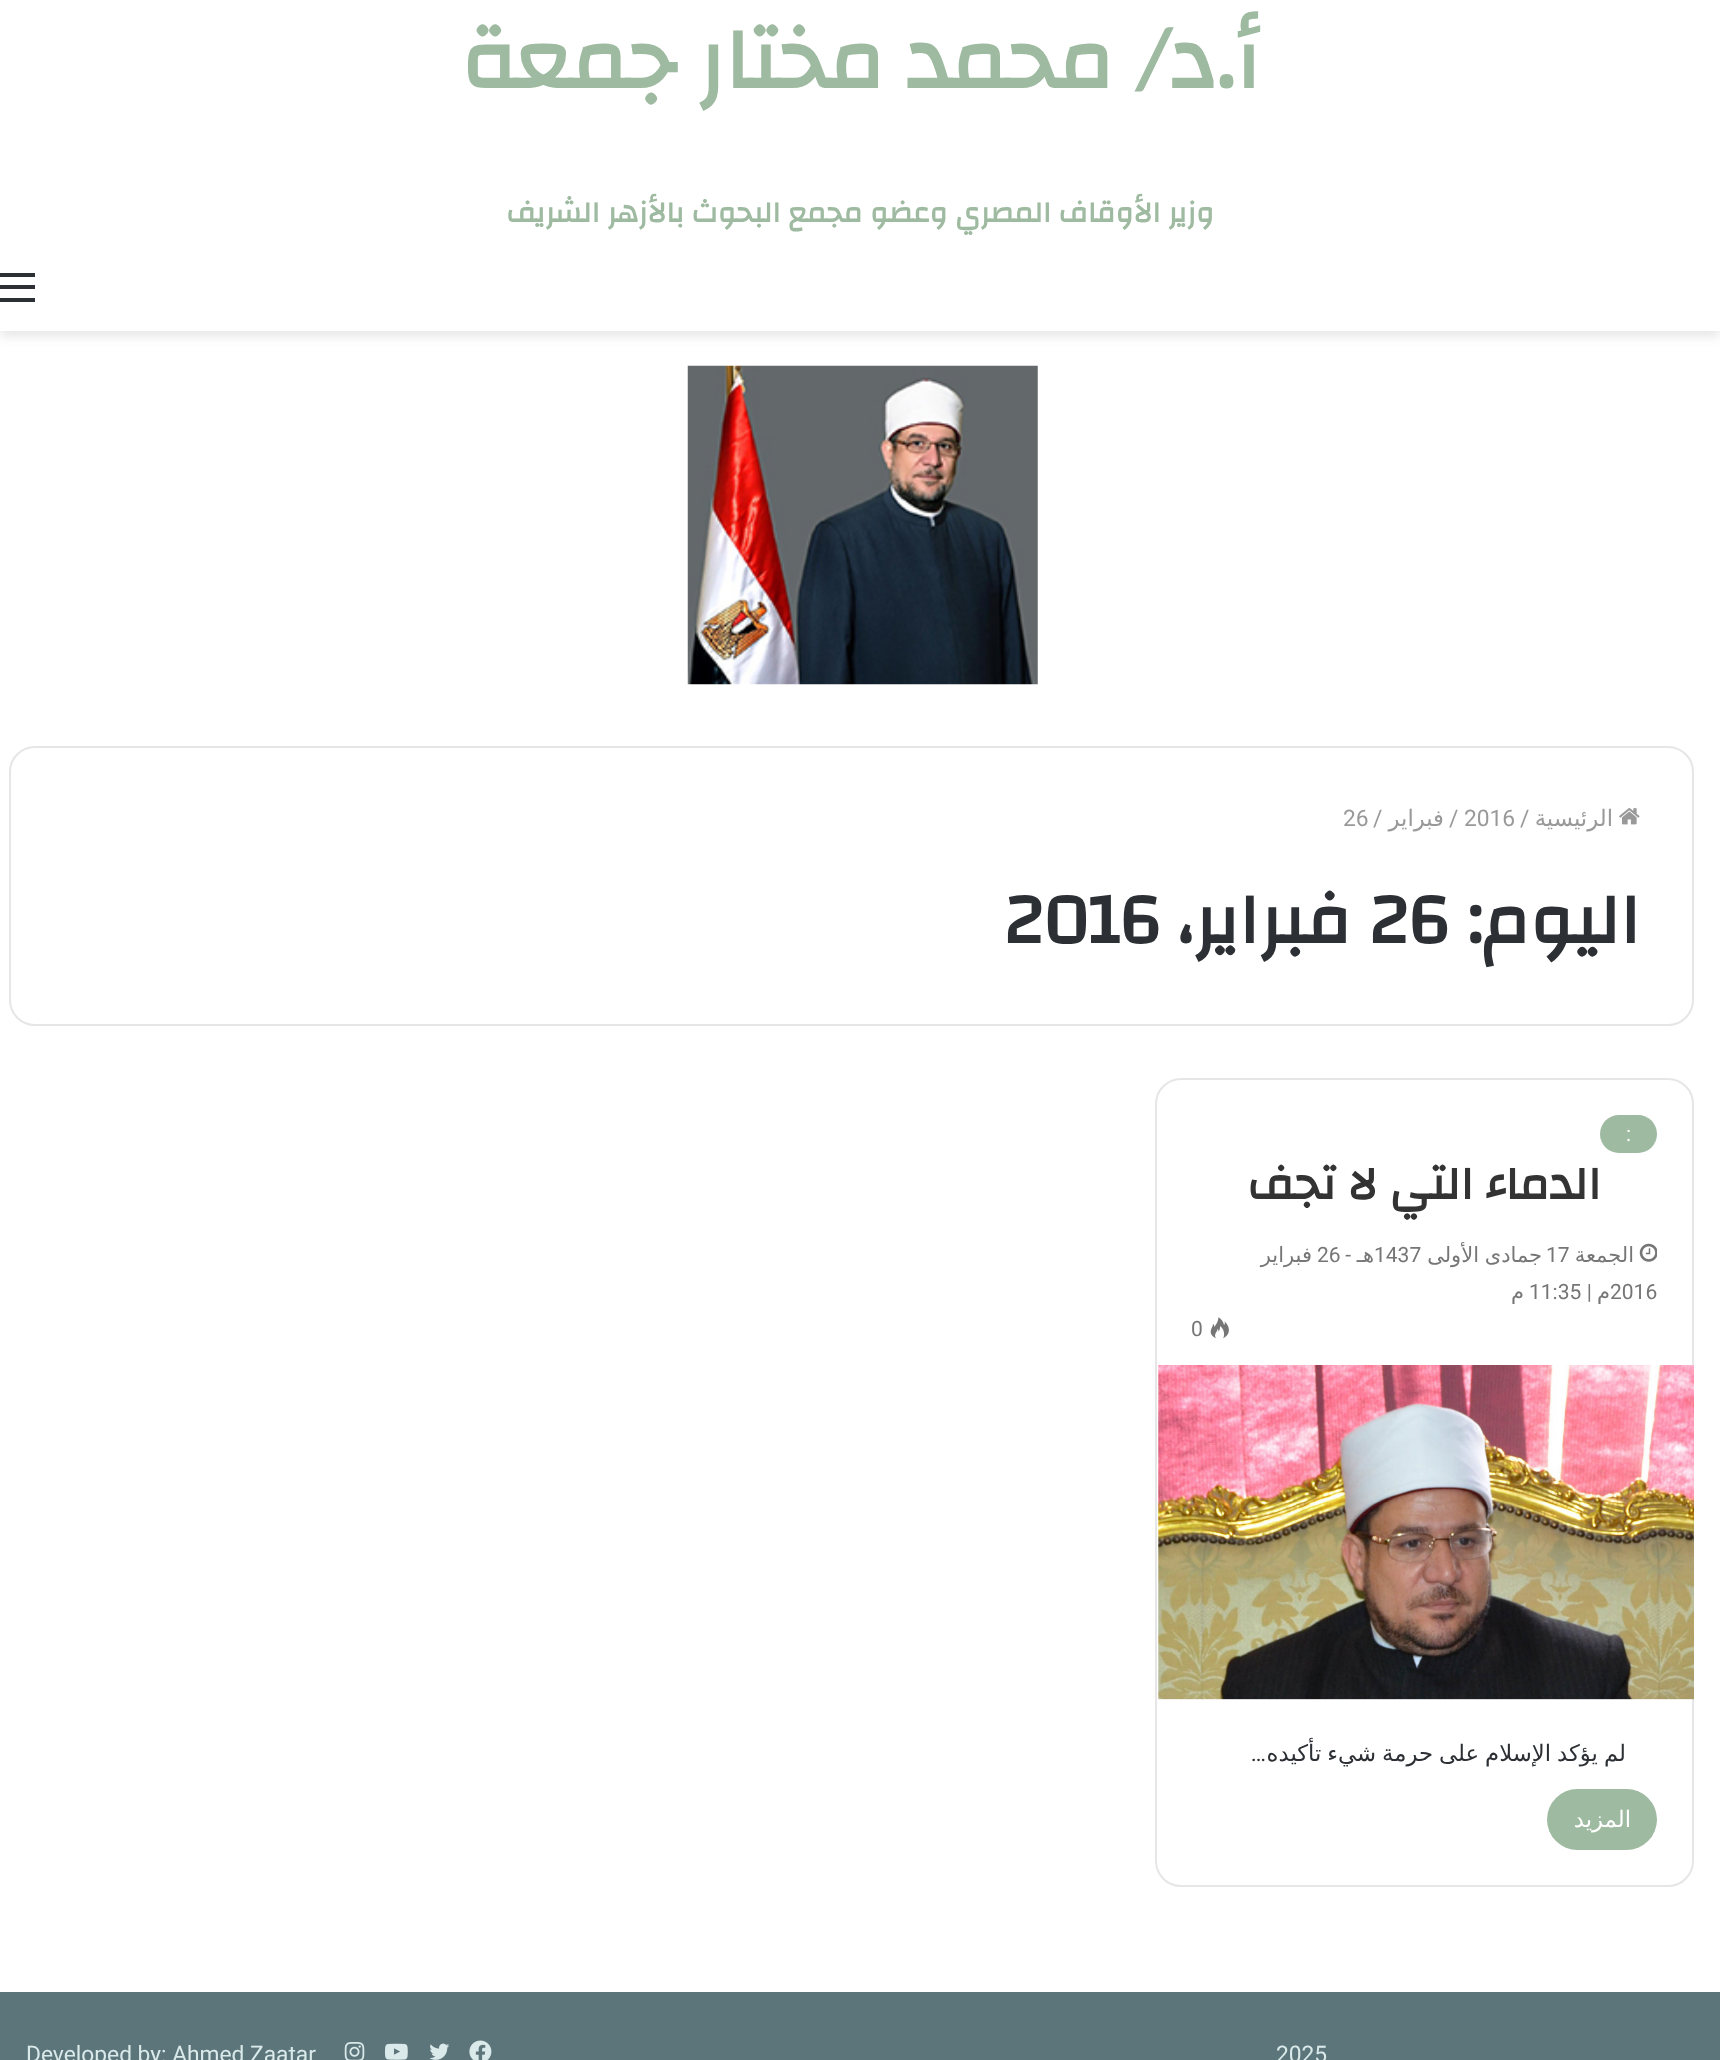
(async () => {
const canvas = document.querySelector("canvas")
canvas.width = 1720
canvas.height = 2060
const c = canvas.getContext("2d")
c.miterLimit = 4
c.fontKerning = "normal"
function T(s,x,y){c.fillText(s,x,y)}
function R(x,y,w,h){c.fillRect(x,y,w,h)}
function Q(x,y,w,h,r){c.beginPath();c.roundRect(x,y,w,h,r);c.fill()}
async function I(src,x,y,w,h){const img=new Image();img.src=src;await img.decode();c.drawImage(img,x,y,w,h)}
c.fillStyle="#fff"
R(0,0,1720,2060)
c.fillStyle="#0000001a"
c.filter="blur(6px)"
c.beginPath()
c.rect(0,5,1720,331)
c.fill()
c.filter="none"
c.fillStyle="#fff"
R(0,0,1720,331)
c.direction="rtl"
c.font="bold 87.5px Changa"
c.fillStyle="#9ebaa0"
T("أ.د/ محمد مختار جمعة",1260,88)
c.font="bold 29.75px Changa"
T("وزير الأوقاف المصري وعضو مجمع البحوث بالأزهر الشريف",1214,222)
c.fillStyle="#2c2f34"
R(0,285,35,4)
R(0,273,35,4)
R(0,298,35,4)
await I("1.png",687,365,351,320)
c.beginPath()
c.roundRect(10,747,1683,278,25)
c.strokeStyle="#e6e6e6"
c.lineWidth=2
c.stroke()
await I("2.png",1619,808,21,17)
c.font="22.75px DejaVu Sans"
c.fillStyle="#999"
T("الرئيسية",1613,826)
c.direction="ltr"
c.font="22.75px Roboto"
T("/",1520,826)
T("2016",1464,826)
T("/",1449,826)
c.direction="rtl"
c.font="22.75px DejaVu Sans"
T("فبراير",1444,826)
c.direction="ltr"
c.font="22.75px Roboto"
T("/",1373,826)
T("26",1343,826)
c.direction="rtl"
c.font="bold 72px Changa"
c.fillStyle="#2c2f34"
T("اليوم:",1640,943)
c.direction="ltr"
T("26",1369,943)
c.direction="rtl"
T("فبراير،",1351,943)
c.direction="ltr"
T("2016",1004,943)
c.beginPath()
c.roundRect(1156,1079,537,807,25)
c.stroke()
c.fillStyle="#9ebaa0"
Q(1600,1115,57,38,19)
c.font="21px Roboto"
c.fillStyle="#fff"
T(":",1626,1141)
c.direction="rtl"
c.font="bold 47.25px Changa"
c.fillStyle="#333"
T("الدماء التي لا تجف",1601,1199)
await I("3.png",1639,1243,18,19)
c.font="21px DejaVu Sans"
c.fillStyle="#767676"
T("الجمعة",1634,1262)
c.direction="ltr"
c.font="21px Roboto"
T("17",1546,1262)
c.wordSpacing="-1px"
c.direction="rtl"
c.font="21px DejaVu Sans"
T("جمادى الأولى",1542,1262)
c.wordSpacing="0px"
c.direction="ltr"
c.font="21px Roboto"
T("1437",1374,1262)
c.direction="rtl"
c.font="21px DejaVu Sans"
T("هـ",1374,1262)
c.font="21px Roboto"
T("-",1351,1262)
c.direction="ltr"
T("26",1317,1262)
c.direction="rtl"
c.font="21px DejaVu Sans"
T("فبراير",1312,1262)
c.direction="ltr"
c.font="21px Roboto"
T("2016",1610,1299)
c.direction="rtl"
c.font="21px DejaVu Sans"
T("م",1610,1299)
c.font="21px Roboto"
T("|",1592,1299)
c.direction="ltr"
T("11:35",1529,1299)
c.direction="rtl"
c.font="21px DejaVu Sans"
T("م",1524,1299)
await I("4.png",1210,1317,19,22)
c.direction="ltr"
c.font="21px Roboto"
T("0",1191,1336)
await I("5.png",1158,1365,536,335)
c.wordSpacing="-1.25px"
c.direction="rtl"
c.font="22.75px DejaVu Sans"
c.fillStyle="#2c2f34"
T("لم يؤكد الإسلام على حرمة شيء تأكيده",1626,1761)
c.wordSpacing="0px"
c.font="22.75px Roboto"
T("…",1266,1761)
c.fillStyle="#9ebaa0"
Q(1547,1789,110,61,30.5)
c.font="22.75px DejaVu Sans"
c.fillStyle="#fff"
T("المزيد",1631,1827)
c.fillStyle="#5c757b"
R(0,1992,1720,68)
c.direction="ltr"
c.font="22.75px Roboto"
c.fillStyle="#daeaea"
T("2025",1276,2062)
await I("6.png",469,2040,23,20)
await I("7.png",429,2043,21,17)
await I("8.png",385,2043,23,17)
await I("9.png",344,2042,21,18)
T("Developed by: Ahmed Zaatar",26,2062)
})()
